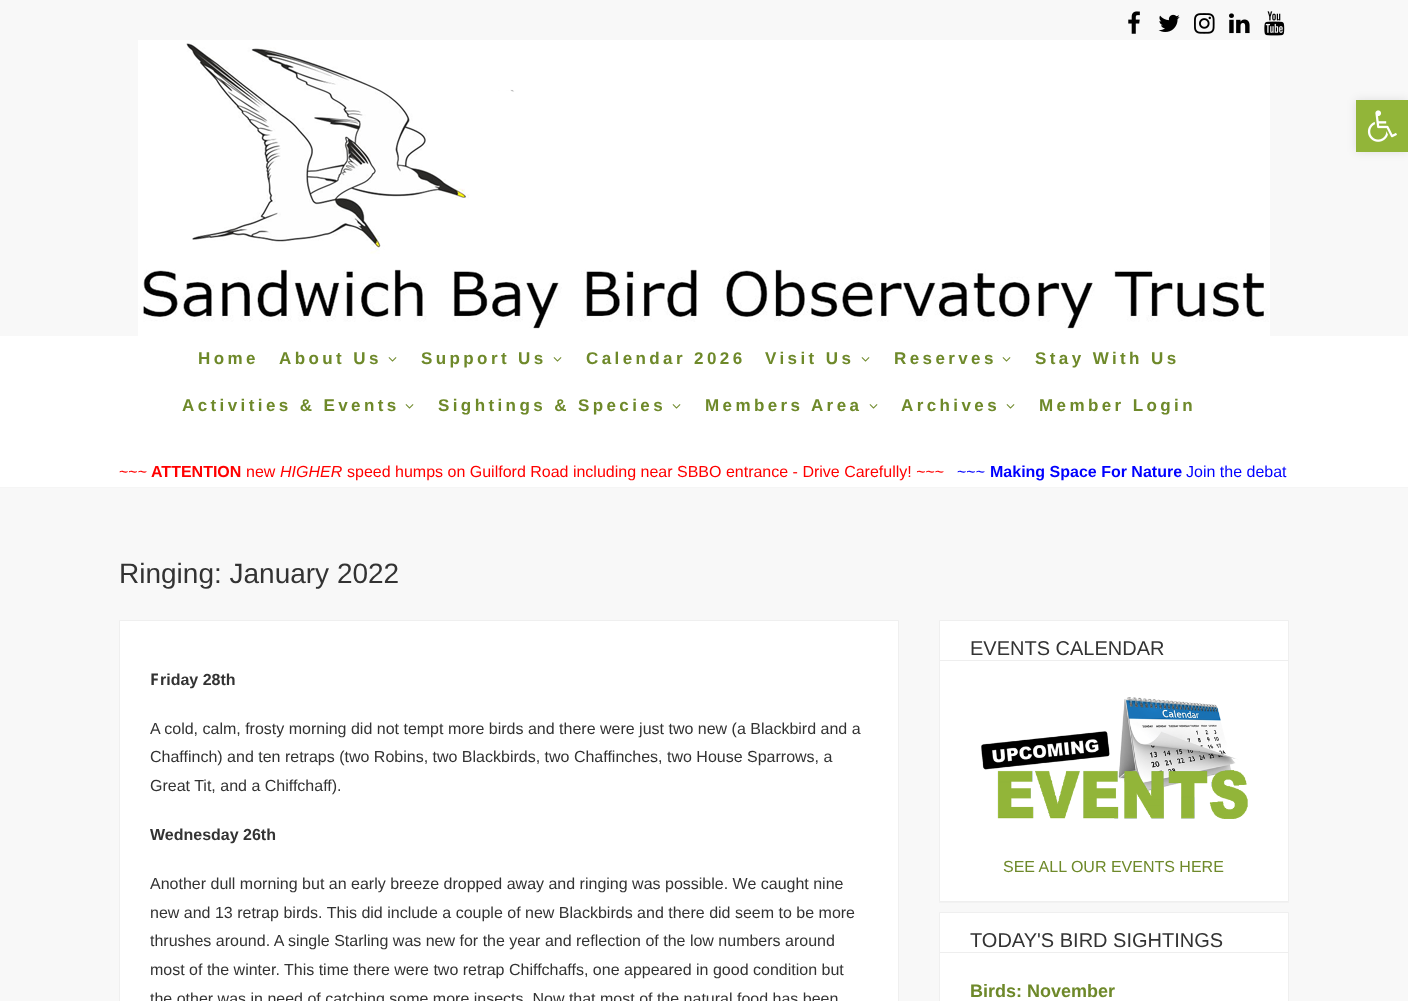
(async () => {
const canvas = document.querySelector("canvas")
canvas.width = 1408
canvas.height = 1001
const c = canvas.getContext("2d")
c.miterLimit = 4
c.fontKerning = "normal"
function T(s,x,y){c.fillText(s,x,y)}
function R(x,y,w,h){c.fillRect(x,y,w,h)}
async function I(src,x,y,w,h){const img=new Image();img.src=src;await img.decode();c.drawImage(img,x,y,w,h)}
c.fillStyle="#f8f8f8"
R(0,0,1408,1001)
c.fillStyle="#0000001a"
c.filter="blur(5px)"
c.beginPath()
c.rect(1356,100,52,52)
c.fill()
c.filter="none"
c.fillStyle="#92b539"
R(1356,100,52,52)
await I("1.png",1367,110,30,32)
await I("2.png",1128,11,12,23)
await I("3.png",1158,14,22,18)
await I("4.png",1194,13,21,21)
await I("5.png",1229,13,21,21)
await I("6.png",1264,11,21,25)
await I("7.png",138,40,1132,296)
c.fillStyle="#fff"
R(0,336,1408,151)
c.fillStyle="#f5f5f5"
R(0,487,1408,1)
c.letterSpacing="3.4px"
c.font="bold 17px Arimo"
c.fillStyle="#6e892a"
T("Home",198,364)
T("About Us",279,364)
await I("8.png",388,357,9,5)
T("Support Us",421,364)
await I("8.png",553,357,9,5)
T("Calendar 2026",586,364)
T("Visit Us",765,364)
await I("8.png",861,357,9,5)
T("Reserves",894,364)
await I("8.png",1002,357,9,5)
T("Stay With Us",1035,364)
T("Activities & Events",182,411)
await I("8.png",405,404,9,5)
T("Sightings & Species",438,411)
await I("8.png",672,404,9,5)
T("Members Area",705,411)
await I("8.png",869,404,9,5)
T("Archives",901,411)
await I("8.png",1006,404,9,5)
T("Member Login",1039,411)
c.letterSpacing="0px"
c.font="16px Arimo"
c.fillStyle="#f00"
T("~~~",119,477)
c.font="bold 16px Arimo"
T("ATTENTION",151,477)
c.font="16px Arimo"
T("new",246,477)
c.font="italic 16px Arimo"
T("HIGHER",280,477)
c.font="16px Arimo"
T("speed humps on Guilford Road including near SBBO entrance - Drive Carefully! ~~~",347,477)
c.fillStyle="#00f"
T("~~~",957,477)
c.font="bold 16px Arimo"
T("Making Space For Nature",990,477)
c.font="16px Arimo"
T("Join the debat",1186,477)
c.font="28px Arimo"
c.fillStyle="#333"
T("Ringing: January 2022",119,583)
c.fillStyle="#fff"
c.beginPath()
c.rect(119.5,620.5,779,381)
c.fill()
c.strokeStyle="#efefef"
c.stroke()
c.font="bold 16px Noto Sans"
c.fillStyle="#333"
T("F",150,685)
c.font="bold 16px Arimo"
T("riday 28th",160,685)
c.font="16px Arimo"
T("A cold, calm, frosty morning did not tempt more birds and there were just two new (a Blackbird and a",150,734)
T("Chaffinch) and ten retraps (two Robins, two Blackbirds, two Chaffinches, two House Sparrows, a",150,762)
T("Great Tit, and a Chiffchaff).",150,791)
c.font="bold 16px Arimo"
T("Wednesday 26th",150,840)
c.font="16px Arimo"
T("Another dull morning but an early breeze dropped away and ringing was possible. We caught nine",150,889)
T("new and 13 retrap birds. This did include a couple of new Blackbirds and there did seem to be more",150,918)
T("thrushes around. A single Starling was new for the year and reflection of the low numbers around",150,946)
T("most of the winter. This time there were two retrap Chiffchaffs, one appeared in good condition but",150,975)
T("the other was in need of catching some more insects. Now that most of the natural food has been",150,1004)
c.fillStyle="#f2f2f2"
R(939,902,350,1)
c.fillStyle="#fff"
c.beginPath()
c.rect(939.5,620.5,349,281)
c.fill()
c.stroke()
c.fillStyle="#eee"
R(940,660,348,1)
c.font="20px Arimo"
c.fillStyle="#333"
T("EVENTS CALENDAR",970,655)
await I("9.png",981,697,267,122)
c.font="16px Arimo"
c.fillStyle="#6e892a"
T("SEE ALL OUR EVENTS HERE",1003,872)
c.fillStyle="#fff"
c.beginPath()
c.rect(939.5,912.5,349,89)
c.fill()
c.stroke()
c.fillStyle="#eee"
R(940,952,348,1)
c.font="20px Arimo"
c.fillStyle="#333"
T("TODAY'S BIRD SIGHTINGS",970,947)
c.font="bold 18px Arimo"
c.fillStyle="#6e892a"
T("Birds: November",970,997)
})()
